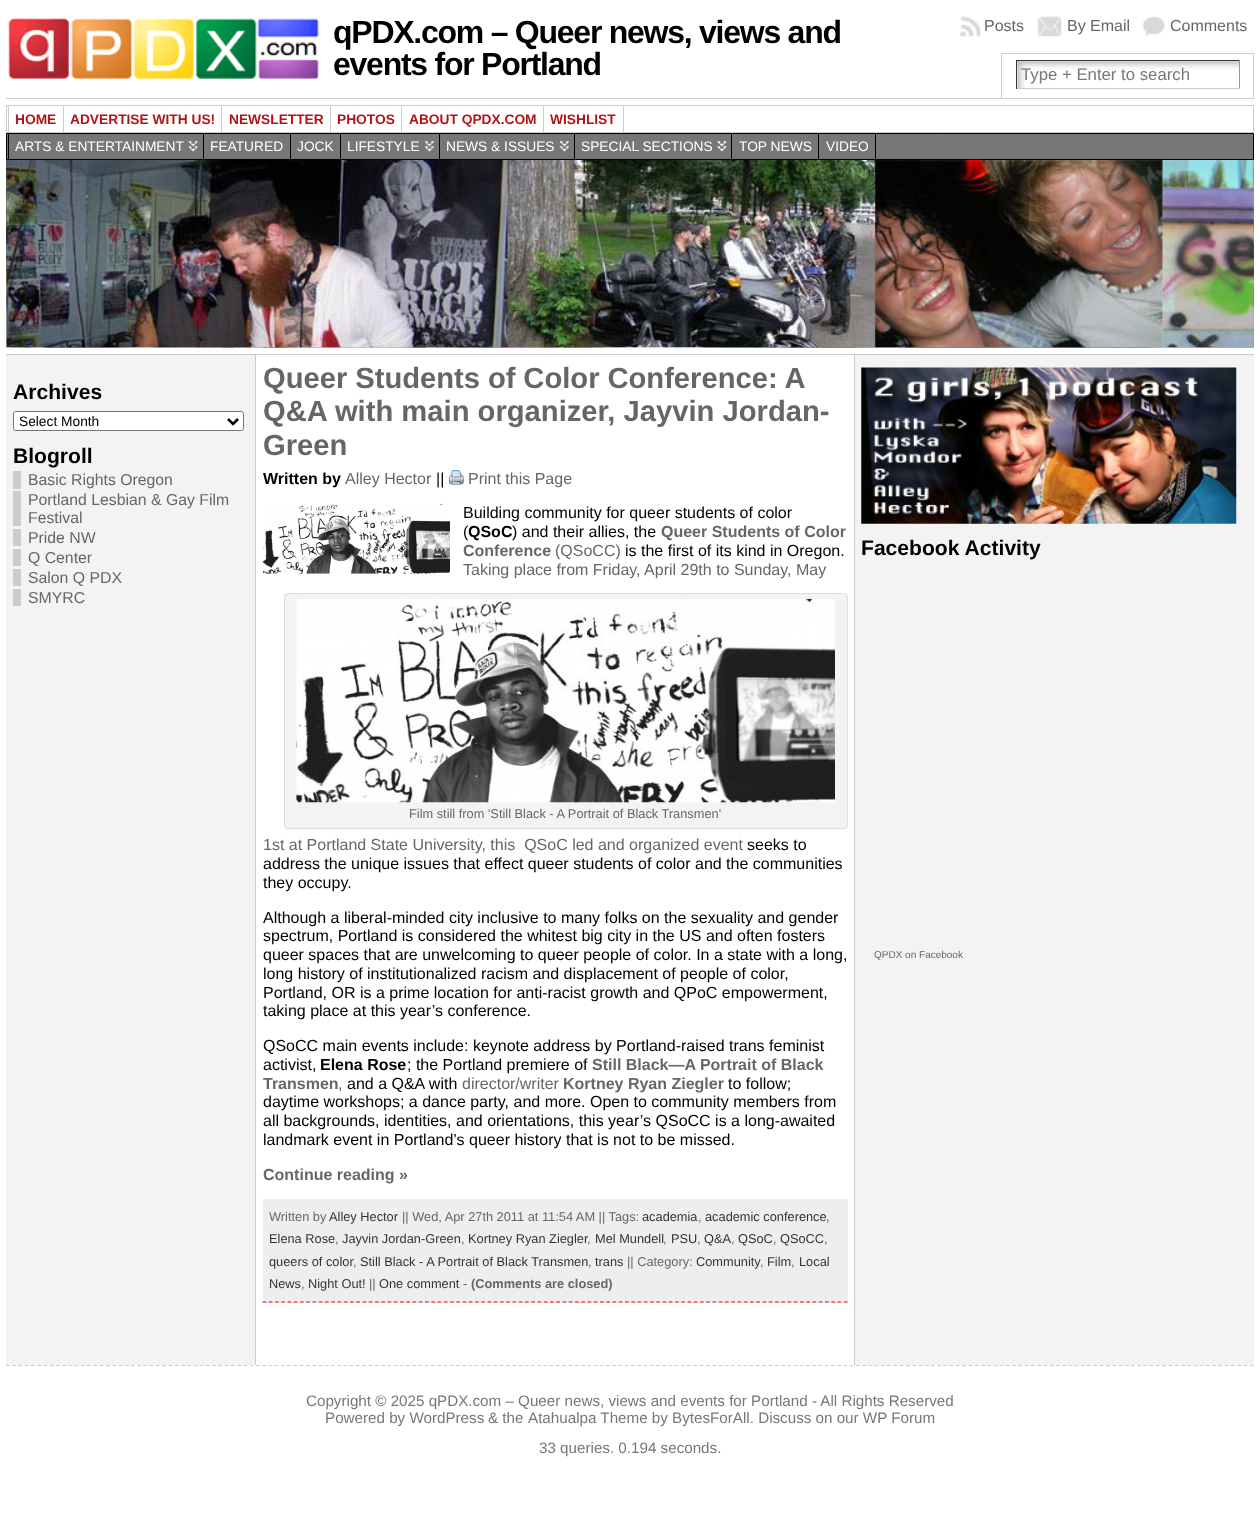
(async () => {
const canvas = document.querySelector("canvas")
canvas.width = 1260
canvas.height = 1524
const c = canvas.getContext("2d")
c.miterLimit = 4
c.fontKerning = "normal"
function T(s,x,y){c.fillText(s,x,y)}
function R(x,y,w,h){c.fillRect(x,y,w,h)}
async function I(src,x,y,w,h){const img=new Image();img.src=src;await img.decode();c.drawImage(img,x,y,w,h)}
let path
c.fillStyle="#fff"
R(0,0,1260,1524)
await I("1.png",8,18,311,61)
c.letterSpacing="-1.25px"
c.font="bold 32px Liberation Sans"
c.fillStyle="#000"
T("qPDX.com – Queer news, views and",333,43)
T("events for Portland",333,75)
await I("2.png",960,16,20,21)
c.letterSpacing="0px"
c.font="16px Liberation Sans"
c.fillStyle="#666"
T("Posts",984,31)
await I("3.png",1037,16,25,21)
T("By Email",1067,31)
await I("4.png",1142,16,23,21)
T("Comments",1170,31)
c.fillStyle="#ccc"
R(1001,53,253,1)
R(1253,53,1,45)
R(1001,53,1,45)
await I("5.png",1017,61,222,27)
c.fillStyle="#333"
R(1016,60,224,1)
c.fillStyle="#999"
R(1239,60,1,29)
c.fillStyle="#ccc"
R(1016,88,224,1)
c.fillStyle="#333"
R(1016,60,1,29)
c.font="16.75px Liberation Sans"
c.fillStyle="#777"
T("Type + Enter to search",1021,80)
c.fillStyle="#ccc"
R(6,98,1248,1)
c.strokeStyle="#ccc"
c.strokeRect(6.5,105.5,1247,27)
c.strokeRect(8.5,105.5,55,27)
c.font="bold 13.75px Liberation Sans"
c.fillStyle="#b31217"
T("HOME",15,124)
c.strokeRect(63.5,105.5,159,27)
T("ADVERTISE WITH US!",70,124)
c.fillStyle="#fff"
R(222,106,1,26)
c.strokeRect(221.5,105.5,109,27)
c.fillStyle="#b31217"
T("NEWSLETTER",229,124)
c.strokeRect(330.5,105.5,72,27)
T("PHOTOS",337,124)
c.fillStyle="#fff"
R(402,106,1,26)
c.strokeRect(401.5,105.5,142,27)
c.fillStyle="#b31217"
T("ABOUT QPDX.COM",409,124)
c.strokeRect(543.5,105.5,80,27)
T("WISHLIST",550,124)
c.fillStyle="#777"
c.beginPath()
c.rect(6.5,133.5,1247,26)
c.fill()
c.strokeStyle="#000"
c.stroke()
await I("6.png",188,141,10,11)
c.strokeRect(8.5,133.5,195,26)
c.font="13.75px Liberation Sans"
c.fillStyle="#fff"
T("ARTS & ENTERTAINMENT",15,151)
c.strokeRect(203.5,133.5,87,26)
T("FEATURED",210,151)
c.strokeRect(290.5,133.5,50,26)
T("JOCK",297,151)
await I("7.png",425,141,9,11)
c.strokeRect(340.5,133.5,99,26)
T("LIFESTYLE",347,151)
await I("7.png",560,141,9,11)
c.strokeRect(439.5,133.5,135,26)
T("NEWS & ISSUES",446,151)
await I("8.png",717,141,10,11)
c.strokeRect(574.5,133.5,158,26)
T("SPECIAL SECTIONS",581,151)
c.fillStyle="#777"
R(732,134,1,25)
c.strokeRect(731.5,133.5,87,26)
c.fillStyle="#fff"
T("TOP NEWS",739,151)
c.strokeRect(818.5,133.5,57,26)
T("VIDEO",826,151)
await I("9.png",6,160,1248,188)
await I("10.png",6,160,1248,188)
c.fillStyle="#ccc"
R(6,354,1248,1)
c.fillStyle="#f3f3f3"
R(6,355,249,1010)
c.fillStyle="#ccc"
R(255,355,1,1010)
c.font="bold 21.1px Liberation Sans"
c.fillStyle="#000"
T("Archives",13,399)
c.fillStyle="#fff"
c.beginPath()
c.roundRect(13.5,411.5,230,19,2)
c.fill()
c.strokeStyle="#767676"
c.stroke()
path = new Path2D("M228 419l5 5l5-5")
c.strokeStyle="#000"
c.lineWidth=2.5
c.stroke(path)
c.font="13.75px Liberation Sans"
c.fillStyle="#000"
T("Select Month",19,426)
c.font="bold 21.1px Liberation Sans"
T("Blogroll",13,463)
c.fillStyle="#ccc"
R(13,471,8,18)
c.font="15.8px Liberation Sans"
c.fillStyle="#666"
T("Basic Rights Oregon",28,485)
c.fillStyle="#ccc"
R(13,491,8,35)
c.fillStyle="#666"
T("Portland Lesbian & Gay Film",28,505)
T("Festival",28,523)
c.fillStyle="#ccc"
R(13,529,8,17)
c.fillStyle="#666"
T("Pride NW",28,543)
c.fillStyle="#ccc"
R(13,549,8,17)
c.fillStyle="#666"
T("Q Center",28,563)
c.fillStyle="#ccc"
R(13,569,8,17)
c.fillStyle="#666"
T("Salon Q PDX",28,583)
c.fillStyle="#ccc"
R(13,589,8,17)
c.fillStyle="#666"
T("SMYRC",28,603)
c.wordSpacing="-0.25px"
c.font="bold 29.2px Liberation Sans"
T("Queer Students of Color Conference: A",263,388)
c.wordSpacing="0px"
T("Q&A with main organizer, Jayvin Jordan-",263,421)
T("Green",263,455)
c.font="bold 16px Liberation Sans"
c.fillStyle="#000"
T("Written by",263,484)
c.font="16px Liberation Sans"
c.fillStyle="#666"
T("Alley Hector",345,484)
c.fillStyle="#000"
T("||",436,484)
await I("11.png",448,470,16,15)
c.fillStyle="#666"
T("Print this Page",468,484)
await I("12.png",262,503,188,71)
c.fillStyle="#000"
T("Building community for queer students of color",463,518)
T("(",463,537)
c.font="bold 16px Liberation Sans"
T("QSoC",468,537)
c.font="16px Liberation Sans"
T(") and their allies, the",512,537)
c.font="bold 16px Liberation Sans"
c.fillStyle="#666"
T("Queer Students of Color",661,537)
T("Conference",463,556)
c.font="16px Liberation Sans"
T("(QSoCC)",555,556)
c.fillStyle="#000"
T("is the first of its kind in Oregon.",625,556)
c.fillStyle="#666"
T("Taking place from Friday, April 29th to Sunday, May",463,575)
T("1st at Portland State University, this  QSoC led and organized event",263,850)
c.fillStyle="#000"
T("seeks to",747,850)
T("address the unique issues that effect queer students of color and the communities",263,869)
T("they occupy.",263,888)
c.fillStyle="#f3f3f3"
c.beginPath()
c.roundRect(284.5,593.5,563,235,3.5)
c.fill()
c.strokeStyle="#ddd"
c.lineWidth=1
c.stroke()
await I("13.png",296,598,539,205)
c.font="12.8px Liberation Sans"
c.fillStyle="#666"
T("Film still from 'Still Black - A Portrait of Black Transmen'",409,818)
c.font="16px Liberation Sans"
c.fillStyle="#000"
T("Although a liberal-minded city inclusive to many folks on the sexuality and gender",263,923)
T("spectrum, Portland is considered the whitest big city in the US and often fosters",263,941)
T("queer spaces that are unwelcoming to queer people of color. In a state with a long,",263,960)
T("long history of institutionalized racism and displacement of people of color,",263,979)
T("Portland, OR is a prime location for anti-racist growth and QPoC empowerment,",263,998)
T("taking place at this year’s conference.",263,1016)
T("QSoCC main events include: keynote address by Portland-raised trans feminist",263,1051)
T("activist,",263,1070)
c.font="bold 16px Liberation Sans"
T("Elena Rose",320,1070)
c.font="16px Liberation Sans"
T("; the Portland premiere of",407,1070)
c.font="bold 16px Liberation Sans"
c.fillStyle="#666"
T("Still Black—A Portrait of Black",592,1070)
T("Transmen",263,1089)
c.font="16px Liberation Sans"
T(",",338,1089)
c.fillStyle="#000"
T("and a Q&A with",347,1089)
c.fillStyle="#666"
T("director/writer",462,1089)
c.font="bold 16px Liberation Sans"
T("Kortney Ryan Ziegler",563,1089)
c.font="16px Liberation Sans"
c.fillStyle="#000"
T("to follow;",728,1089)
T("daytime workshops; a dance party, and more. Open to community members from",263,1107)
T("all backgrounds, identities, and orientations, this year’s QSoCC is a long-awaited",263,1126)
T("landmark event in Portland’s queer history that is not to be missed.",263,1145)
c.font="bold 16px Liberation Sans"
c.fillStyle="#666"
T("Continue reading »",263,1180)
c.fillStyle="#eee"
R(263,1199,585,104)
path = new Path2D("M262.5 1302h585")
c.strokeStyle="#f00"
c.lineWidth=1.2
c.setLineDash([3.75,2.5])
c.stroke(path)
c.font="12.8px Liberation Sans"
c.fillStyle="#666"
T("Written by",269,1221)
c.fillStyle="#333"
T("Alley Hector",329,1221)
c.fillStyle="#666"
T("|| Wed, Apr 27th 2011 at 11:54 AM || Tags:",402,1221)
c.fillStyle="#333"
T("academia",642,1221)
c.fillStyle="#666"
T(",",698,1221)
c.fillStyle="#333"
T("academic conference",705,1221)
c.fillStyle="#666"
T(",",826,1221)
c.fillStyle="#333"
T("Elena Rose",269,1243)
c.fillStyle="#666"
T(",",335,1243)
c.fillStyle="#333"
T("Jayvin Jordan-Green",342,1243)
c.fillStyle="#666"
T(",",461,1243)
c.fillStyle="#333"
T("Kortney Ryan Ziegler",468,1243)
c.fillStyle="#666"
T(",",587,1243)
c.fillStyle="#333"
T("Mel Mundell",595,1243)
c.fillStyle="#666"
T(",",663,1243)
c.fillStyle="#333"
T("PSU",671,1243)
c.fillStyle="#666"
T(",",697,1243)
c.fillStyle="#333"
T("Q&A",704,1243)
c.fillStyle="#666"
T(",",731,1243)
c.fillStyle="#333"
T("QSoC",738,1243)
c.fillStyle="#666"
T(",",773,1243)
c.fillStyle="#333"
T("QSoCC",780,1243)
c.fillStyle="#666"
T(",",824,1243)
c.fillStyle="#333"
T("queers of color",269,1266)
c.fillStyle="#666"
T(",",353,1266)
c.fillStyle="#333"
T("Still Black - A Portrait of Black Transmen",360,1266)
c.fillStyle="#666"
T(",",588,1266)
c.fillStyle="#333"
T("trans",595,1266)
c.fillStyle="#666"
T("|| Category:",627,1266)
c.fillStyle="#333"
T("Community",696,1266)
T("Film",767,1266)
T("Local",799,1266)
c.fillStyle="#666"
T(",",760,1266)
T(",",791,1266)
c.fillStyle="#333"
T("News",269,1288)
T("Night Out!",308,1288)
c.fillStyle="#666"
T("||",369,1288)
c.fillStyle="#333"
T("One comment",379,1288)
c.fillStyle="#666"
T("-",463,1288)
c.font="bold 12.8px Liberation Sans"
T("(Comments are closed)",471,1288)
c.font="12.8px Liberation Sans"
T(",",301,1288)
c.fillStyle="#f3f3f3"
R(855,355,399,1010)
c.fillStyle="#ccc"
R(854,355,1,1010)
await I("14.png",861,367,376,157)
c.font="bold 21.1px Liberation Sans"
c.fillStyle="#000"
T("Facebook Activity",861,555)
c.font="10px Liberation Sans"
c.fillStyle="#666"
T("QPDX on Facebook",874,958)
path = new Path2D("M6 1365.5h1248")
c.strokeStyle="#ccc"
c.stroke(path)
c.font="15.2px Liberation Sans"
c.fillStyle="#777"
T("Copyright © 2025 qPDX.com – Queer news, views and events for Portland - All Rights Reserved",306,1406)
T("Powered by WordPress",325,1423)
T("& the",488,1423)
T("Atahualpa Theme by BytesForAll. Discuss on our WP Forum",528,1423)
T("33 queries. 0.194 seconds.",539,1453)
})()
